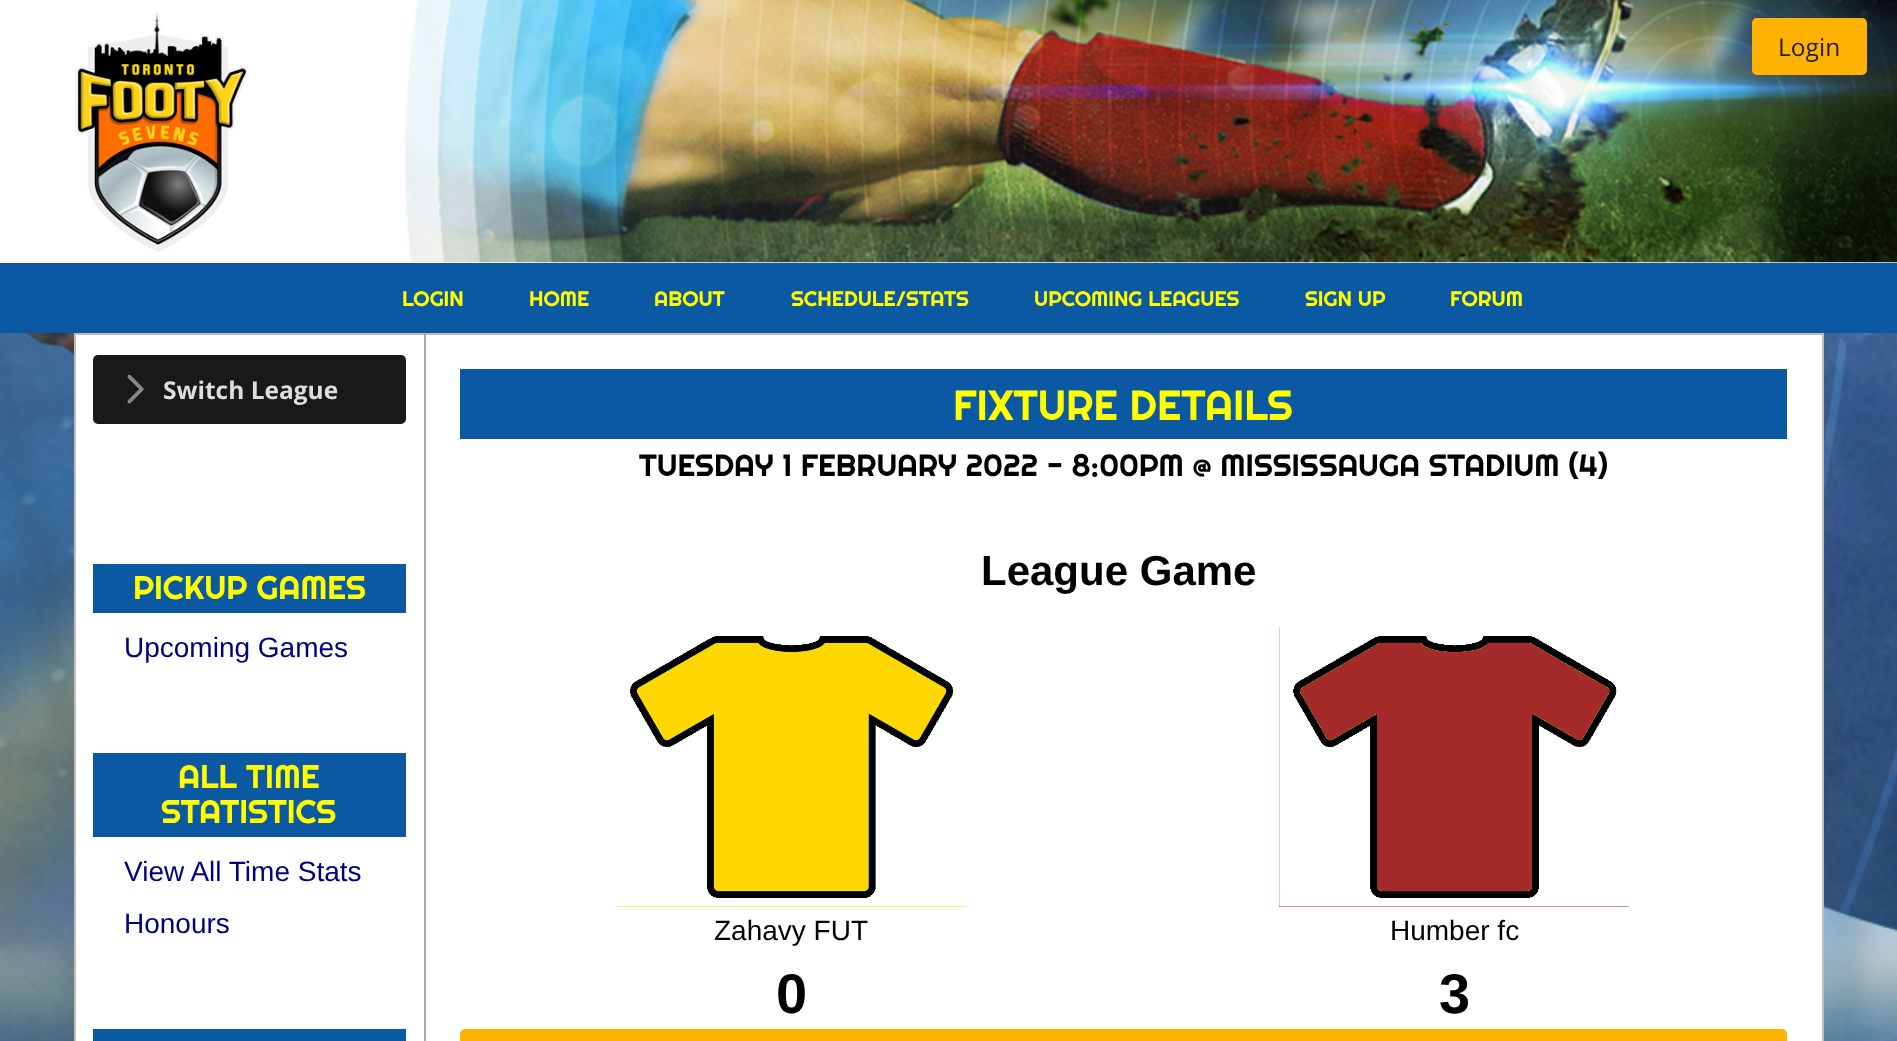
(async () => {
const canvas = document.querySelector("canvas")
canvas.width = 1897
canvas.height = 1041
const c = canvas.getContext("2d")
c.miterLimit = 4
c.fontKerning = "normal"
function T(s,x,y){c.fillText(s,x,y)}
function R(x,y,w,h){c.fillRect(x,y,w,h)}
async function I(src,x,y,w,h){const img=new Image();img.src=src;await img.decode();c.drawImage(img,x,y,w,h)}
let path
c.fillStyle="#fff"
R(0,0,1897,1041)
await I("1.png",0,333,1897,708)
await I("2.png",75,11,174,241)
await I("3.png",404,0,1493,263)
c.fillStyle="#ffb300"
c.beginPath()
c.roundRect(1753,19,113,55,4)
c.fill()
c.strokeStyle="#ffb300"
c.lineWidth=2
c.stroke()
c.font="24.5px Open Sans"
c.fillStyle="#212121"
T("Login",1778,56)
c.fillStyle="#0b59a2"
R(0,263,1897,70)
c.font="21px Righteous"
c.fillStyle="#ff0"
T("LOGIN",402,306)
T("HOME",529,306)
T("ABOUT",654,306)
T("SCHEDULE/STATS",791,306)
T("UPCOMING LEAGUES",1034,306)
T("SIGN UP",1305,306)
T("FORUM",1450,306)
c.fillStyle="#fff"
c.beginPath()
c.rect(75,334,1748,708)
c.fill()
c.strokeStyle="#c3bbb6"
c.stroke()
c.fillStyle="#a9a9a9"
R(424,334,2,707)
c.fillStyle="#191919"
c.beginPath()
c.roundRect(94,356,311,67,4)
c.fill()
c.strokeStyle="#191919"
c.stroke()
await I("4.png",127,374,17,30)
c.font="bold 24.5px Open Sans"
c.fillStyle="#dedede"
T("Switch League",163,399)
c.fillStyle="#0b59a2"
R(93,564,313,49)
c.font="32.75px Righteous"
c.fillStyle="#ff0"
T("PICKUP GAMES",133,599)
c.font="28px Liberation Sans"
c.fillStyle="#000080"
T("Upcoming Games",124,657)
c.fillStyle="#0b59a2"
R(93,753,313,84)
c.font="32.75px Righteous"
c.fillStyle="#ff0"
T("ALL TIME",178,788)
T("STATISTICS",161,823)
c.font="28px Liberation Sans"
c.fillStyle="#000080"
T("View All Time Stats",124,881)
T("Honours",124,933)
c.fillStyle="#0b59a2"
R(93,1029,313,12)
R(460,369,1327,70)
c.font="42px Righteous"
c.fillStyle="#ff0"
T("FIXTURE DETAILS",953,420)
c.font="30.8px Righteous"
c.fillStyle="#000"
T("TUESDAY 1 FEBRUARY 2022 - 8:00PM @ MISSISSAUGA STADIUM (4)",639,476)
c.font="bold 42px Liberation Sans"
T("League Game",981,585)
c.fillStyle="#ffd700"
R(616,643,350,264)
await I("5.png",616,627,350,280)
c.fillStyle="#a52a2a"
R(1279,627,350,280)
await I("6.png",1279,627,350,280)
c.font="28px Liberation Sans"
c.fillStyle="#000"
T("Zahavy FUT",714,940)
T("Humber fc",1390,940)
c.font="bold 56px Liberation Sans"
T("0",776,1013)
T("3",1439,1013)
c.fillStyle="#ffb300"
path = new Path2D("M465 1030h1317c2 0 4 2 4 4v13h-1325v-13c0-2 2-4 4-4z")
c.fill(path)
c.strokeStyle="#ffb300"
c.stroke(path)
})()
